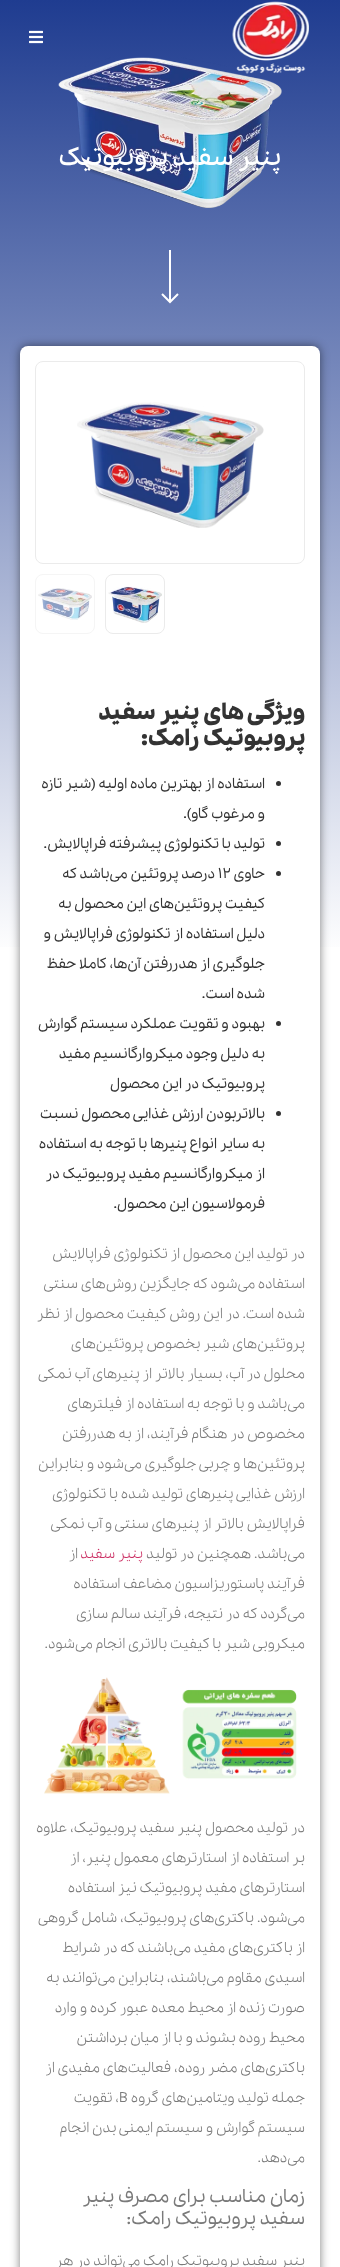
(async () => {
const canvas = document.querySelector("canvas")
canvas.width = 340
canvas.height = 2267
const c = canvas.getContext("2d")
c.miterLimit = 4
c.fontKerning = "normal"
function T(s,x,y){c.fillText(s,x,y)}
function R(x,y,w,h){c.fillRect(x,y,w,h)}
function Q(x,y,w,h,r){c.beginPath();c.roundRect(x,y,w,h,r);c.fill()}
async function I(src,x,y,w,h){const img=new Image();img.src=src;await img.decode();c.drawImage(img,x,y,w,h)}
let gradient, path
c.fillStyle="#fff"
R(0,0,340,2267)
gradient = c.createLinearGradient(170,0,170,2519)
gradient.addColorStop(0,"#1f3c90")
gradient.addColorStop(.38,"#fff")
c.fillStyle = gradient
R(0,0,340,947)
await I("3.png",58,57,224,151)
await I("1.png",232,1,77,73)
await I("2.png",29,30,14,14)
c.direction="rtl"
c.font="600 24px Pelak"
c.fillStyle="#fff"
T("پنیر سفید پروبیوتیک",281,165)
R(169,250,2,51)
path = new Path2D("M162 294l8 8l8-8")
c.strokeStyle="#fff"
c.lineWidth=2
c.stroke(path)
c.fillStyle="#00000080"
c.filter="blur(5px)"
c.beginPath()
c.roundRect(20,346,300,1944,8)
c.fill()
c.filter="none"
c.fillStyle="#fff"
Q(20,346,300,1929,8)
c.beginPath()
c.roundRect(35.5,361.5,269,202,7.5)
c.strokeStyle="#ebebeb"
c.lineWidth=1
c.stroke()
await I("4.png",77,402,187,126)
c.beginPath()
c.roundRect(105.5,574.5,59,59,7.5)
c.stroke()
await I("5.png",108,586,54,37)
c.beginPath()
c.roundRect(35.5,574.5,59,59,7.5)
c.strokeStyle="#f5f5f5"
c.stroke()
await I("6.png",38,588,54,32)
c.font="900 22px Pelak"
c.fillStyle="#333"
T("ویژگی های پنیر سفید",305,719)
T("پروبیوتیک رامک:",305,745)
c.beginPath()
c.arc(278.5,783.5,2.5,0,7)
c.fill()
c.font="500 14px Pelak"
T("استفاده از بهترین ماده اولیه (شیر تازه",265,788)
T("و مرغوب گاو).",265,818)
c.beginPath()
c.arc(278.5,843.5,2.5,0,7)
c.fill()
T("تولید با تکنولوژی پیشرفته فراپالایش.",265,848)
c.beginPath()
c.arc(278.5,873.5,2.5,0,7)
c.fill()
T("حاوی",265,878)
c.direction="ltr"
T("۱۲",218,878)
c.direction="rtl"
T("درصد پروتئین می‌باشد که",215,878)
T("کیفیت پروتئین‌های این محصول به",265,908)
T("دلیل استفاده از تکنولوژی فراپالایش و",265,938)
T("جلوگیری از هدررفتن آن‌ها، کاملا حفظ",265,968)
T("شده است.",265,998)
c.beginPath()
c.arc(278.5,1023.5,2.5,0,7)
c.fill()
T("بهبود و تقویت عملکرد سیستم گوارش",265,1028)
T("به دلیل وجود میکروارگانسیم مفید",265,1058)
T("پروبیوتیک در این محصول",265,1088)
c.beginPath()
c.arc(278.5,1113.5,2.5,0,7)
c.fill()
T("بالاتربودن ارزش غذایی محصول نسبت",265,1118)
T("به سایر انواع پنیرها با توجه به استفاده",265,1148)
T("از میکروارگانسیم مفید پروبیوتیک در",265,1178)
T("فرمولاسیون این محصول.",265,1208)
c.font="14px Pelak"
c.fillStyle="#7a7a7a"
T("در تولید این محصول از تکنولوژی فراپالایش",305,1258)
T("استفاده می‌شود که جایگزین روش‌های سنتی",305,1288)
T("شده است. در این روش کیفیت محصول از نظر",305,1318)
T("پروتئین‌های شیر بخصوص پروتئین‌های",305,1348)
T("محلول در آب، بسیار بالاتر از پنیرهای آب نمکی",305,1378)
T("می‌باشد و با توجه به استفاده از فیلترهای",305,1408)
T("مخصوص در هنگام فرآیند، از به هدررفتن",305,1438)
T("پروتئین‌ها و چربی جلوگیری می‌شود و بنابراین",305,1468)
T("ارزش غذایی پنیرهای تولید شده با تکنولوژی",305,1498)
T("فراپالایش بالاتر از پنیرهای سنتی و آب نمکی",305,1528)
T("می‌باشد. همچنین در تولید",305,1558)
c.fillStyle="#c36"
T("پنیر سفید",143,1558)
c.fillStyle="#7a7a7a"
T("از",78,1558)
T("فرآیند پاستوریزاسیون مضاعف استفاده",305,1588)
T("می‌گردد که در نتیجه، فرآیند سالم سازی",305,1618)
T("میکروبی شیر با کیفیت بالاتری انجام می‌شود.",305,1648)
await I("7.png",44,1677,253,117)
T("در تولید محصول پنیر سفید پروبیوتیک، علاوه",305,1832)
T("بر استفاده از استارترهای معمول پنیر، از",305,1862)
T("استارترهای مفید پروبیوتیک نیز استفاده",305,1892)
T("می‌شود. باکتری‌های پروبیوتیک، شامل گروهی",305,1922)
T("از باکتری‌های مفید می‌باشند که در شرایط",305,1952)
T("اسیدی مقاوم می‌باشند، بنابراین می‌توانند به",305,1982)
T("صورت زنده از محیط معده عبور کرده و وارد",305,2012)
T("محیط روده بشوند و با از میان برداشتن",305,2042)
T("باکتری‌های مضر روده، فعالیت‌های مفیدی از",305,2072)
T("جمله تولید ویتامین‌های گروه",305,2102)
c.direction="ltr"
T("B",119,2102)
c.direction="rtl"
T("، تقویت",119,2102)
T("سیستم گوارش و سیستم ایمنی بدن انجام",305,2132)
T("می‌دهد.",305,2162)
c.font="500 18px Pelak"
T("زمان مناسب برای مصرف پنیر",305,2202)
T("سفید پروبیوتیک رامک:",305,2224)
c.font="14px Pelak"
T("پنیر سفید پروبیوتیک رامک می‌تواند در هر",305,2265)
})()
